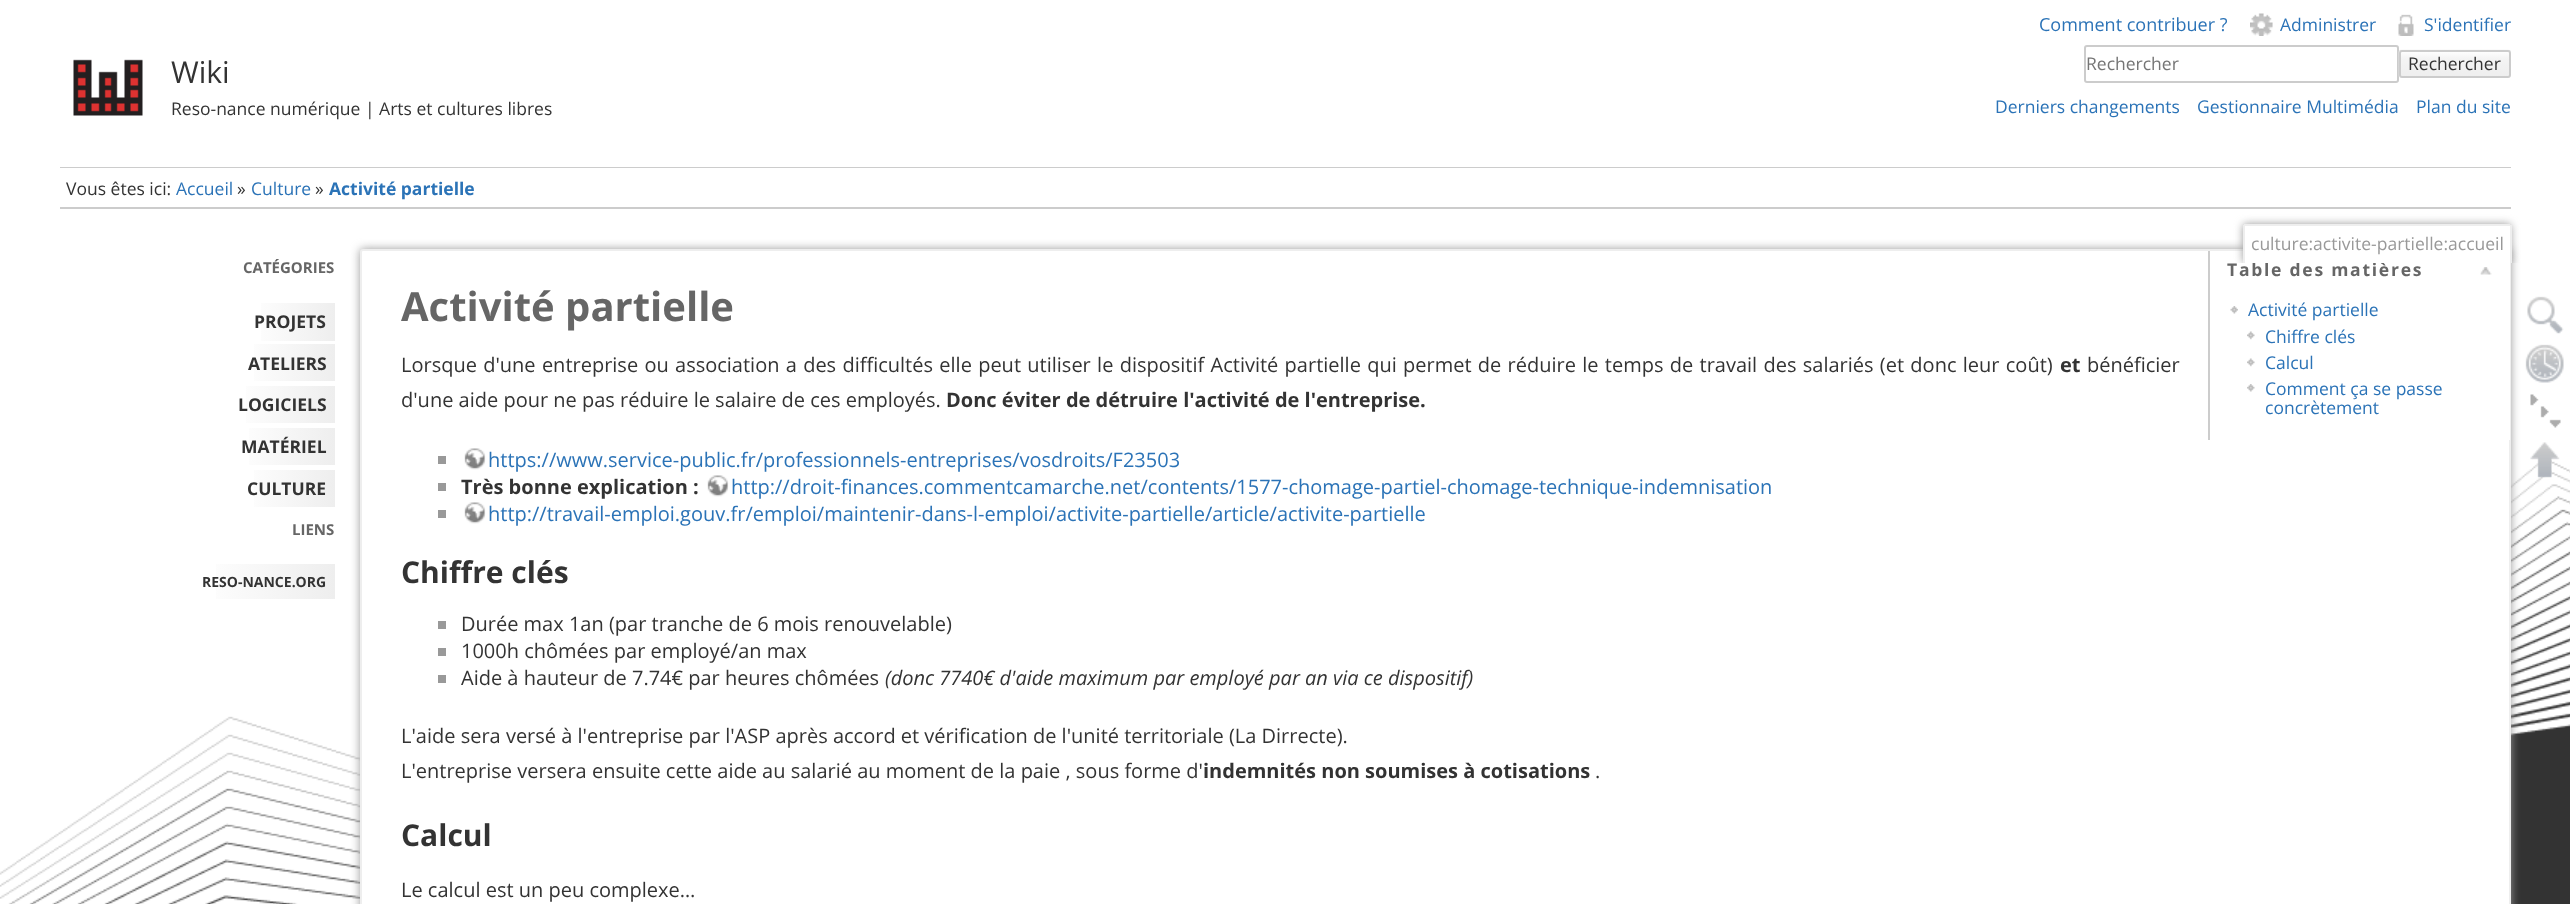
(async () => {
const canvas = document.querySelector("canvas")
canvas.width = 2570
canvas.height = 904
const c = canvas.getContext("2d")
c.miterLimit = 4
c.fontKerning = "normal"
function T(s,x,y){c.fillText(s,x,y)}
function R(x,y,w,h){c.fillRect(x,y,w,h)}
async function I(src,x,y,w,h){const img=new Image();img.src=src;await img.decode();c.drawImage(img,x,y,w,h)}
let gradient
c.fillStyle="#fff"
R(0,0,2570,904)
await I("1.png",0,0,2570,904)
await I("2.png",73,59,70,57)
c.font="30px Open Sans"
c.fillStyle="#333"
T("Wiki",171,83)
c.font="17.5px Open Sans"
T("Reso-nance numérique | Arts et cultures libres",171,115)
c.font="18px Open Sans"
c.fillStyle="#2b73b7"
T("Comment contribuer ?",2039,31)
await I("3.png",2250,13,23,23)
c.font="17.5px Open Sans"
T("Administrer",2280,31)
await I("4.png",2398,14,16,22)
T("S'identifier",2424,31)
c.beginPath()
c.roundRect(2085,46,313,36,2)
c.strokeStyle="#ccc"
c.lineWidth=2
c.stroke()
c.fillStyle="#757575"
T("Rechercher",2086,70)
await I("5.png",2398,49,113,29)
c.beginPath()
c.roundRect(2400,51,110,26,2)
c.stroke()
c.fillStyle="#333"
T("Rechercher",2408,70)
c.fillStyle="#2b73b7"
T("Derniers changements",1995,113)
T("Gestionnaire Multimédia",2197,113)
T("Plan du site",2416,113)
c.fillStyle="#ccc"
R(60,167,2451,1)
R(60,207,2451,2)
c.fillStyle="#333"
T("Vous êtes ici:",66,195)
c.fillStyle="#2b73b7"
T("Accueil",176,195)
c.fillStyle="#333"
T("»",237,195)
c.fillStyle="#2b73b7"
T("Culture",251,195)
c.fillStyle="#333"
T("»",315,195)
c.font="bold 17.5px Open Sans"
c.fillStyle="#2b73b7"
T("Activité partielle",329,195)
c.font="bold 15px Open Sans"
c.fillStyle="#666"
T("CATÉGORIES",243,273)
gradient = c.createLinearGradient(248,322,335,322)
gradient.addColorStop(0,"#fff")
gradient.addColorStop(1,"#eee")
c.fillStyle = gradient
R(261,303,74,38)
c.font="bold 17.5px Open Sans"
c.fillStyle="#333"
T("PROJETS",254,328)
gradient = c.createLinearGradient(240,362,335,362)
gradient.addColorStop(0,"#fff")
gradient.addColorStop(1,"#eee")
c.fillStyle = gradient
R(254,344,81,37)
c.fillStyle="#333"
T("ATELIERS",248,370)
gradient = c.createLinearGradient(231,404,335,404)
gradient.addColorStop(0,"#fff")
gradient.addColorStop(1,"#eee")
c.fillStyle = gradient
R(246,386,89,37)
c.fillStyle="#333"
T("LOGICIELS",238,411)
gradient = c.createLinearGradient(234,446,335,446)
gradient.addColorStop(0,"#fff")
gradient.addColorStop(1,"#eee")
c.fillStyle = gradient
R(249,428,86,37)
c.fillStyle="#333"
T("MATÉRIEL",241,453)
gradient = c.createLinearGradient(240,488,335,488)
gradient.addColorStop(0,"#fff")
gradient.addColorStop(1,"#eee")
c.fillStyle = gradient
R(254,470,81,37)
c.fillStyle="#333"
T("CULTURE",247,495)
c.font="bold 15px Open Sans"
c.fillStyle="#666"
T("LIENS",292,535)
gradient = c.createLinearGradient(195,581,335,581)
gradient.addColorStop(0,"#fff")
gradient.addColorStop(1,"#eee")
c.fillStyle = gradient
R(216,564,119,35)
c.font="bold 14px Open Sans"
c.fillStyle="#333"
T("RESO-NANCE.ORG",202,587)
c.fillStyle="#999"
c.filter="blur(5px)"
c.beginPath()
c.roundRect(360,249,2151,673,3)
c.fill()
c.filter="none"
c.fillStyle="#fff"
c.beginPath()
c.roundRect(361,250,2149,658,2)
c.fill()
c.strokeStyle="#eee"
c.stroke()
R(2508,251,2,189)
await I("6.png",2480,267,12,8)
c.save()
c.beginPath()
c.rect(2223,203,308,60)
c.clip()
c.fillStyle="#999"
c.filter="blur(4.5px)"
c.beginPath()
c.roundRect(2243,224,268,39,3)
c.fill()
c.filter="none"
c.restore()
c.letterSpacing="1.75px"
c.font="bold 17.5px Open Sans"
c.fillStyle="#666"
T("Table des matières",2227,276)
c.fillStyle="#fff"
R(2245,226,265,37)
c.fillStyle="#eee"
R(2244,224,266,2)
R(2510,225,2,38)
R(2243,225,2,38)
c.letterSpacing="0px"
c.font="17.5px Open Sans"
c.fillStyle="#999"
T("culture:activite-partielle:accueil",2251,250)
c.font="bold 40px Open Sans"
c.fillStyle="#666"
T("Activité partielle",401,321)
c.fillStyle="#ccc"
R(2208,251,2,189)
await I("7.png",2230,306,8,8)
c.font="17.5px Open Sans"
c.fillStyle="#2b73b7"
T("Activité partielle",2248,316)
await I("8.png",2247,331,8,9)
T("Chiffre clés",2265,343)
await I("8.png",2247,358,8,9)
T("Calcul",2265,369)
await I("9.png",2247,384,8,8)
T("Comment ça se passe",2265,395)
T("concrètement",2265,414)
c.wordSpacing="1.1px"
c.font="20px Open Sans"
c.fillStyle="#333"
T("Lorsque d'une entreprise ou association a des difficultés elle peut utiliser le dispositif Activité partielle qui permet de réduire le temps de travail des salariés (et donc leur coût)",401,372)
c.wordSpacing="0px"
c.font="bold 20px Open Sans"
T("et",2060,372)
c.font="20px Open Sans"
T("bénéficier",2087,372)
T("d'une aide pour ne pas réduire le salaire de ces employés.",401,407)
c.font="bold 20px Open Sans"
T("Donc éviter de détruire l'activité de l'entreprise.",946,407)
c.fillStyle="#999"
R(438,456,8,8)
await I("10.png",464,448,22,22)
c.font="20px Open Sans"
c.fillStyle="#2b73b7"
T("https://www.service-public.fr/professionnels-entreprises/vosdroits/F23503",488,467)
c.fillStyle="#999"
R(438,483,8,8)
c.font="bold 20px Open Sans"
c.fillStyle="#333"
T("Très bonne explication :",461,494)
await I("10.png",707,475,22,22)
c.font="20px Open Sans"
c.fillStyle="#2b73b7"
T("http://droit-finances.commentcamarche.net/contents/1577-chomage-partiel-chomage-technique-indemnisation",731,494)
c.fillStyle="#999"
R(438,510,8,8)
await I("10.png",464,502,22,22)
c.fillStyle="#2b73b7"
T("http://travail-emploi.gouv.fr/emploi/maintenir-dans-l-emploi/activite-partielle/article/activite-partielle",488,521)
c.font="bold 30px Open Sans"
c.fillStyle="#333"
T("Chiffre clés",401,583)
c.fillStyle="#999"
R(438,621,8,8)
c.font="20px Open Sans"
c.fillStyle="#333"
T("Durée max 1an (par tranche de 6 mois renouvelable)",461,631)
c.fillStyle="#999"
R(438,648,8,8)
c.fillStyle="#333"
T("1000h chômées par employé/an max",461,658)
c.fillStyle="#999"
R(438,675,8,8)
c.fillStyle="#333"
T("Aide à hauteur de 7.74€ par heures chômées",461,685)
c.font="italic 20px Open Sans"
T("(donc 7740€ d'aide maximum par employé par an via ce dispositif)",885,685)
c.font="20px Open Sans"
T("L'aide sera versé à l'entreprise par l'ASP après accord et vérification de l'unité territoriale (La Dirrecte).",401,743)
T("L'entreprise versera ensuite cette aide au salarié au moment de la paie , sous forme d'",401,778)
c.font="bold 20px Open Sans"
T("indemnités non soumises à cotisations",1203,778)
c.font="20px Open Sans"
T(".",1595,778)
c.font="bold 30px Open Sans"
T("Calcul",401,846)
c.font="20px Open Sans"
T("Le calcul est un peu complexe…",401,897)
await I("11.png",2527,296,37,38)
await I("12.png",2525,344,39,39)
await I("13.png",2530,394,31,34)
await I("14.png",2530,442,30,36)
})()
